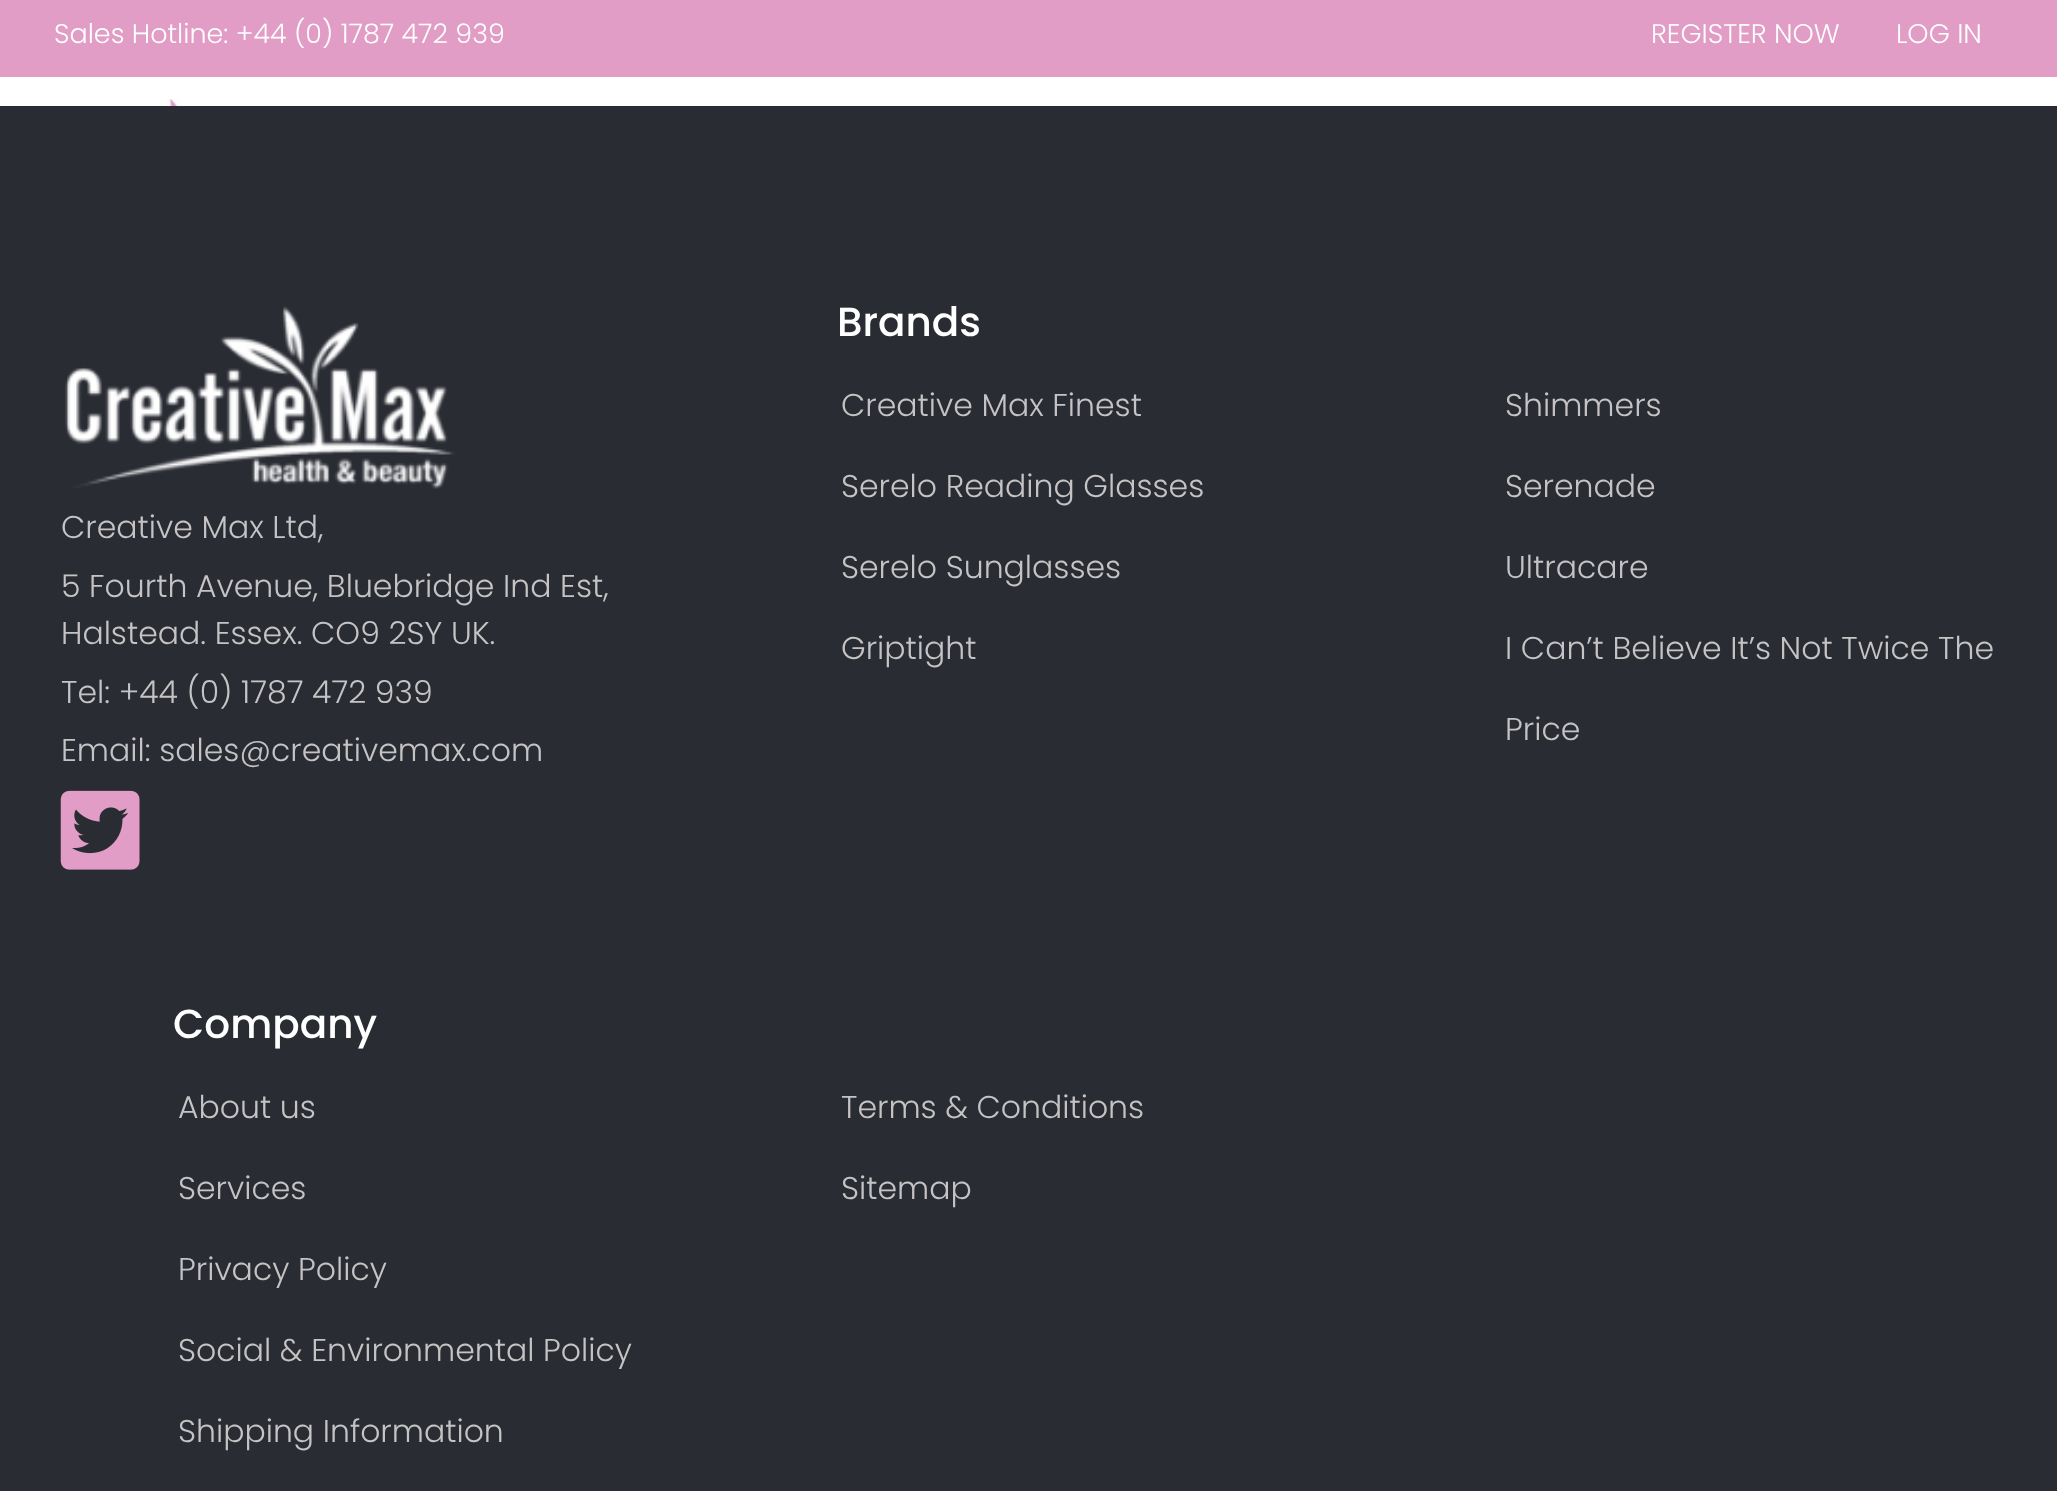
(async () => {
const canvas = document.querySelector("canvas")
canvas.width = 2057
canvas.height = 1491
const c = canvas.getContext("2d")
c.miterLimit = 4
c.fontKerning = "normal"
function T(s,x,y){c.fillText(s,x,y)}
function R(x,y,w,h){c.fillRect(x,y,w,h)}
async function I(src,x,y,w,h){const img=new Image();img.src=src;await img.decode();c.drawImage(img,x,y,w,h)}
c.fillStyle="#fff"
R(0,0,2057,1491)
c.fillStyle="#e19dc5"
R(0,0,2057,77)
c.font="300 27px Poppins"
c.fillStyle="#fff"
T("Sales Hotline: +44 (0) 1787 472 939",54,43)
T("REGISTER NOW",1651,43)
T("LOG IN",1896,43)
await I("1.png",36,99,239,7)
c.fillStyle="#2a2c34"
R(0,106,2057,1385)
await I("2.png",65,306,390,183)
c.font="300 31.5px Poppins"
c.fillStyle="#c5c3c3"
T("Creative Max Ltd,",61,538)
T("5 Fourth Avenue, Bluebridge Ind Est,",61,597)
T("Halstead. Essex. CO9 2SY UK.",61,644)
T("Tel: +44 (0) 1787 472 939",61,703)
T("Email: sales@creativemax.com",61,761)
await I("3.png",60,790,80,80)
c.font="500 40.5px Poppins"
c.fillStyle="#fff"
T("Brands",837,336)
c.font="300 31.5px Poppins"
c.fillStyle="#c5c3c3"
T("Creative Max Finest",841,416)
T("Serelo Reading Glasses",841,497)
T("Serelo Sunglasses",841,578)
T("Griptight",841,659)
T("Shimmers",1505,416)
T("Serenade",1505,497)
T("Ultracare",1505,578)
T("I Can’t Believe It’s Not Twice The",1505,659)
T("Price",1505,740)
c.font="500 40.5px Poppins"
c.fillStyle="#fff"
T("Company",173,1038)
c.font="300 31.5px Poppins"
c.fillStyle="#c5c3c3"
T("About us",178,1118)
T("Services",178,1199)
T("Privacy Policy",178,1280)
T("Social & Environmental Policy",178,1361)
T("Shipping Information",178,1442)
T("Terms & Conditions",841,1118)
T("Sitemap",841,1199)
})()
